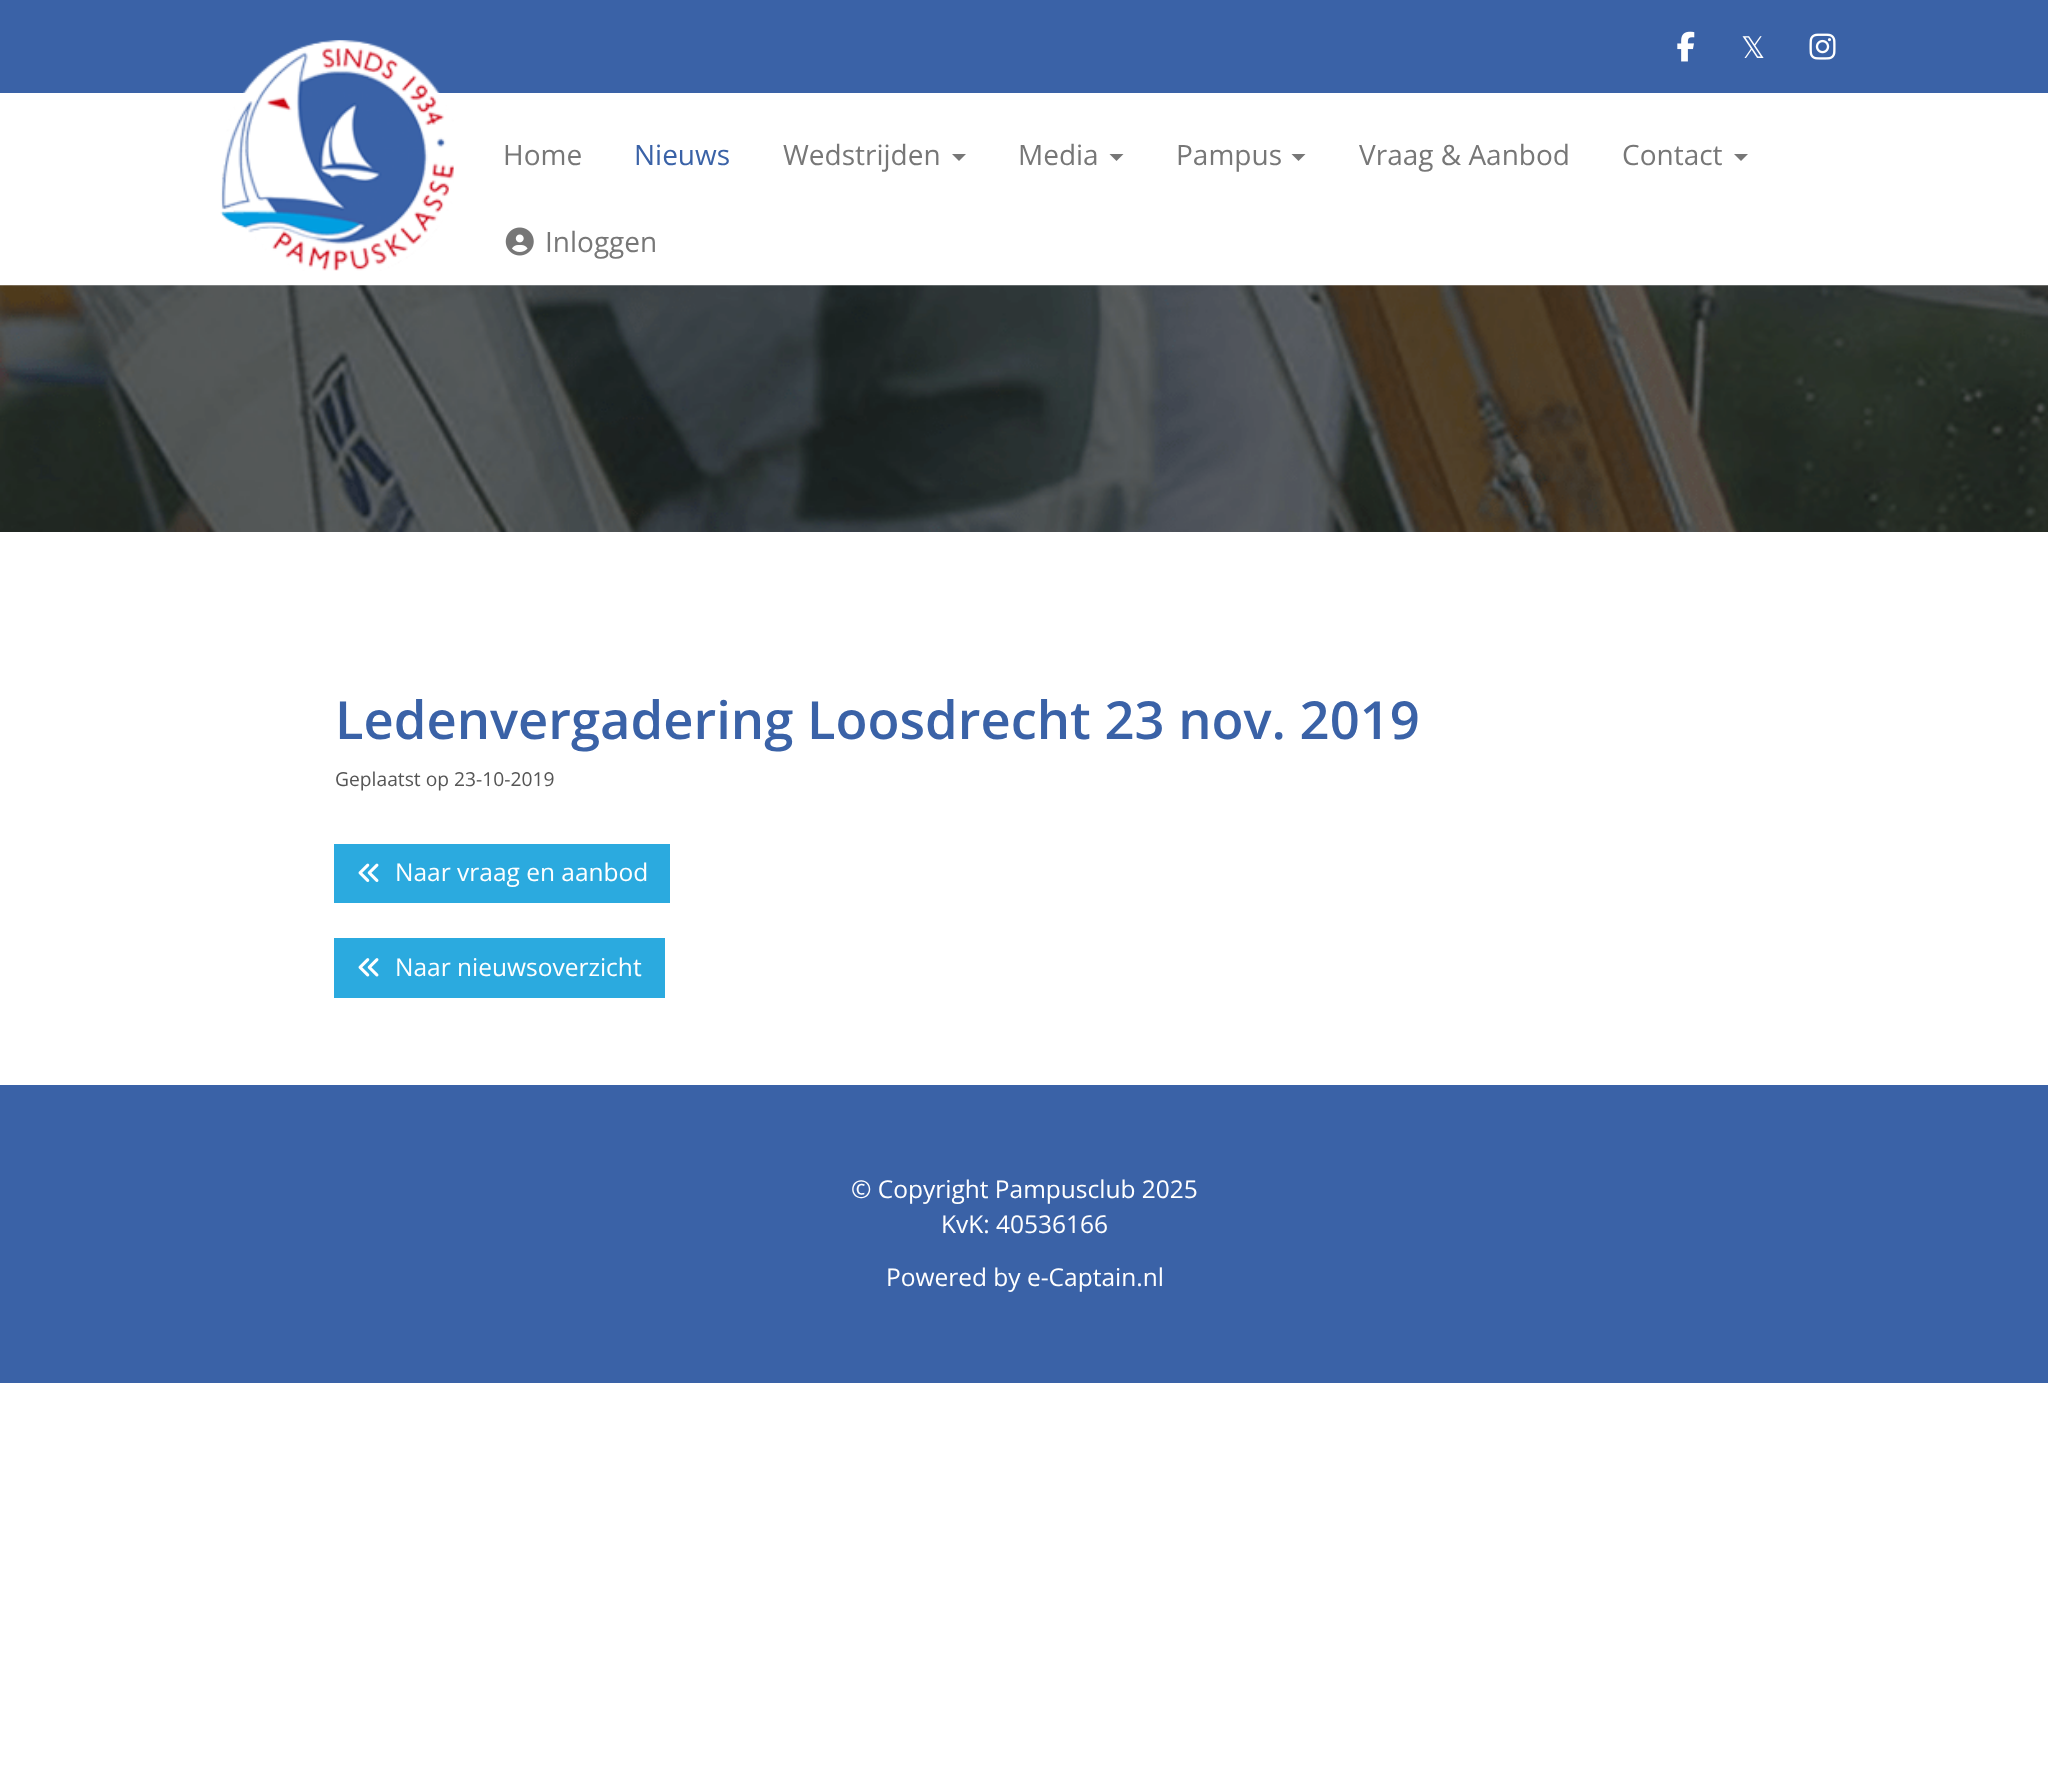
(async () => {
const canvas = document.querySelector("canvas")
canvas.width = 2048
canvas.height = 1777
const c = canvas.getContext("2d")
c.miterLimit = 4
c.fontKerning = "normal"
function T(s,x,y){c.fillText(s,x,y)}
function R(x,y,w,h){c.fillRect(x,y,w,h)}
async function I(src,x,y,w,h){const img=new Image();img.src=src;await img.decode();c.drawImage(img,x,y,w,h)}
let path
c.fillStyle="#fff"
R(0,0,2048,1777)
c.fillStyle="#3a62a7"
R(0,0,2048,93)
await I("1.png",1677,31,18,31)
c.font="30px DejaVu Sans"
c.fillStyle="#fff"
T("𝕏",1741,58)
await I("2.png",1809,33,27,27)
await I("3.png",220,40,234,231)
c.font="28px Open Sans"
c.fillStyle="#777"
T("Home",503,165)
c.fillStyle="#3a62a7"
T("Nieuws",634,165)
c.fillStyle="#777"
T("Wedstrijden",783,165)
path = new Path2D("M952 154h14l-7 7z")
c.fill(path)
T("Media",1018,165)
path = new Path2D("M1109.5 154h14l-7 7z")
c.fill(path)
T("Pampus",1176,165)
path = new Path2D("M1291.5 154h14l-7 7z")
c.fill(path)
T("Vraag & Aanbod",1359,165)
T("Contact",1622,165)
path = new Path2D("M1734 154h14l-7 7z")
c.fill(path)
await I("4.png",505,227,29,29)
T("Inloggen",545,252)
await I("5.png",0,285,2048,247)
c.font="600 52.5px Open Sans"
c.fillStyle="#3a62a7"
T("Ledenvergadering Loosdrecht 23 nov. 2019",335,739)
c.font="19.25px Open Sans"
c.fillStyle="#555"
T("Geplaatst op 23-10-2019",335,786)
c.fillStyle="#2baadf"
R(334,844,336,59)
await I("6.png",358,863,21,19)
c.font="24.5px Open Sans"
c.fillStyle="#fff"
T("Naar vraag en aanbod",395,881)
c.fillStyle="#2baadf"
R(334,938,331,60)
await I("7.png",358,958,21,19)
c.fillStyle="#fff"
T("Naar nieuwsoverzicht",395,976)
c.fillStyle="#3a62a7"
R(0,1085,2048,298)
c.fillStyle="#fff"
T("© Copyright Pampusclub 2025",851,1198)
T("KvK: 40536166",941,1233)
T("Powered by e-Captain.nl",886,1286)
})()
